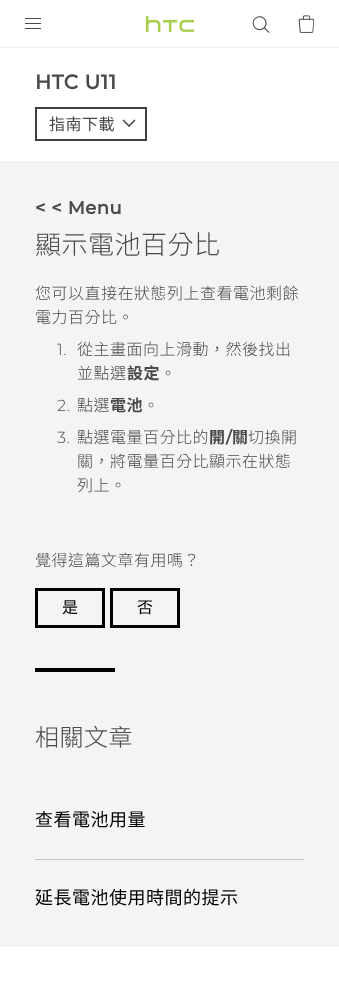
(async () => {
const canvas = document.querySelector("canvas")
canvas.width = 339
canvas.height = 991
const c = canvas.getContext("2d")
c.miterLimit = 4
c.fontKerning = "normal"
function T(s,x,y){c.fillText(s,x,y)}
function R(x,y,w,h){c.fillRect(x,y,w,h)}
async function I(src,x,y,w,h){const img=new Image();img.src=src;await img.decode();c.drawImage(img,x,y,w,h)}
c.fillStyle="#fff"
R(0,0,339,991)
c.fillStyle="#efefef"
R(0,47,339,1)
c.fillStyle="#4a4a4a"
R(25,23,16,1)
R(25,18,16,1)
R(25,28,16,1)
await I("1.png",146,16,48,16)
await I("2.png",252,16,18,17)
await I("3.png",298,15,17,18)
c.letterSpacing="0.5px"
c.font="bold 20px Montserrat"
T("HTC U11",35,89)
c.strokeStyle="#404040"
c.lineWidth=2
c.strokeRect(36,108,110,32)
c.font="16px Noto Sans TC"
T("指南下載",49,130)
await I("4.png",122,119,14,9)
c.fillStyle="#f4f4f4"
R(0,161,339,786)
c.font="bold 18px Montserrat"
c.fillStyle="#4a4a4a"
T("< < Menu",35,214)
c.font="300 26px Noto Sans TC"
T("顯示電池百分比",35,254)
c.font="300 16px Noto Sans TC"
T("您可以直接在狀態列上查看電池剩餘",35,299)
T("電力百分比。",35,323)
c.font="300 16px Montserrat"
T("1.",57,355)
c.font="300 16px Noto Sans TC"
T("從主畫面向上滑動，然後找出",77,355)
T("並點選",77,379)
c.font="bold 16px Noto Sans TC"
T("設定",127,379)
c.font="300 16px Noto Sans TC"
T("。",160,379)
c.font="300 16px Montserrat"
T("2.",57,411)
c.font="300 16px Noto Sans TC"
T("點選",77,411)
c.font="bold 16px Noto Sans TC"
T("電池",110,411)
c.font="300 16px Noto Sans TC"
T("。",143,411)
c.font="300 16px Montserrat"
T("3.",57,443)
c.font="300 16px Noto Sans TC"
T("點選電量百分比的",77,443)
c.font="bold 16px Noto Sans TC"
T("開",209,443)
c.font="bold 16px Montserrat"
T("/",226,443)
c.font="bold 16px Noto Sans TC"
T("關",232,443)
c.font="300 16px Noto Sans TC"
T("切換開",248,443)
T("關，將電量百分比顯示在狀態",77,467)
T("列上。",77,491)
T("覺得這篇文章有用嗎？",35,566)
c.strokeStyle="#000"
c.lineWidth=3
c.strokeRect(36.5,589.5,67,37)
c.letterSpacing="0px"
c.font="16px Noto Sans TC"
c.fillStyle="#000"
T("是",62,613)
c.strokeRect(111.5,589.5,67,37)
T("否",137,613)
R(35,668,80,4)
c.letterSpacing="0.5px"
c.font="300 24px Noto Sans TC"
c.fillStyle="#4a4a4a"
T("相關文章",35,746)
c.font="18px Noto Sans TC"
c.fillStyle="#000"
T("查看電池用量",35,826)
c.fillStyle="#c4c4c4"
R(35,859,269,1)
c.fillStyle="#000"
T("延長電池使用時間的提示",35,904)
})()
